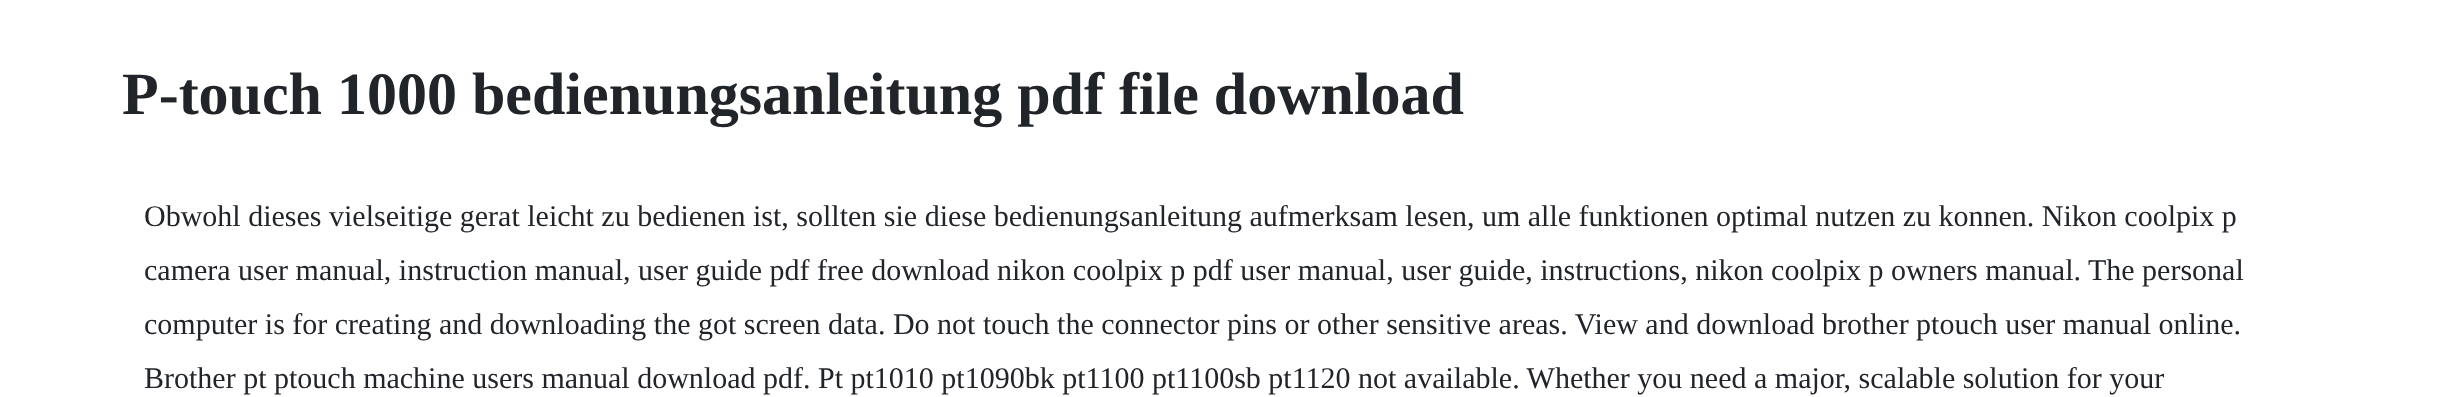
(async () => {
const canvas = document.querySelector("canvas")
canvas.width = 2438
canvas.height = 397
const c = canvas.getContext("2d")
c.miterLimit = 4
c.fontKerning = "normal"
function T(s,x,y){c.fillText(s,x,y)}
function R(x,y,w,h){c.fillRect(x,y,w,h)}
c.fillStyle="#fff"
R(0,0,2438,397)
c.font="bold 60px Liberation Serif"
c.fillStyle="#212529"
T("P-touch 1000 bedienungsanleitung pdf file download",122,114)
c.font="30px Liberation Serif"
T("Obwohl dieses vielseitige gerat leicht zu bedienen ist, sollten sie diese bedienungsanleitung aufmerksam lesen, um alle funktionen optimal nutzen zu konnen. Nikon coolpix p",144,226)
T("camera user manual, instruction manual, user guide pdf free download nikon coolpix p pdf user manual, user guide, instructions, nikon coolpix p owners manual. The personal",144,280)
T("computer is for creating and downloading the got screen data. Do not touch the connector pins or other sensitive areas. View and download brother ptouch user manual online.",144,334)
T("Brother pt ptouch machine users manual download pdf. Pt pt1010 pt1090bk pt1100 pt1100sb pt1120 not available. Whether you need a major, scalable solution for your",144,388)
})()
